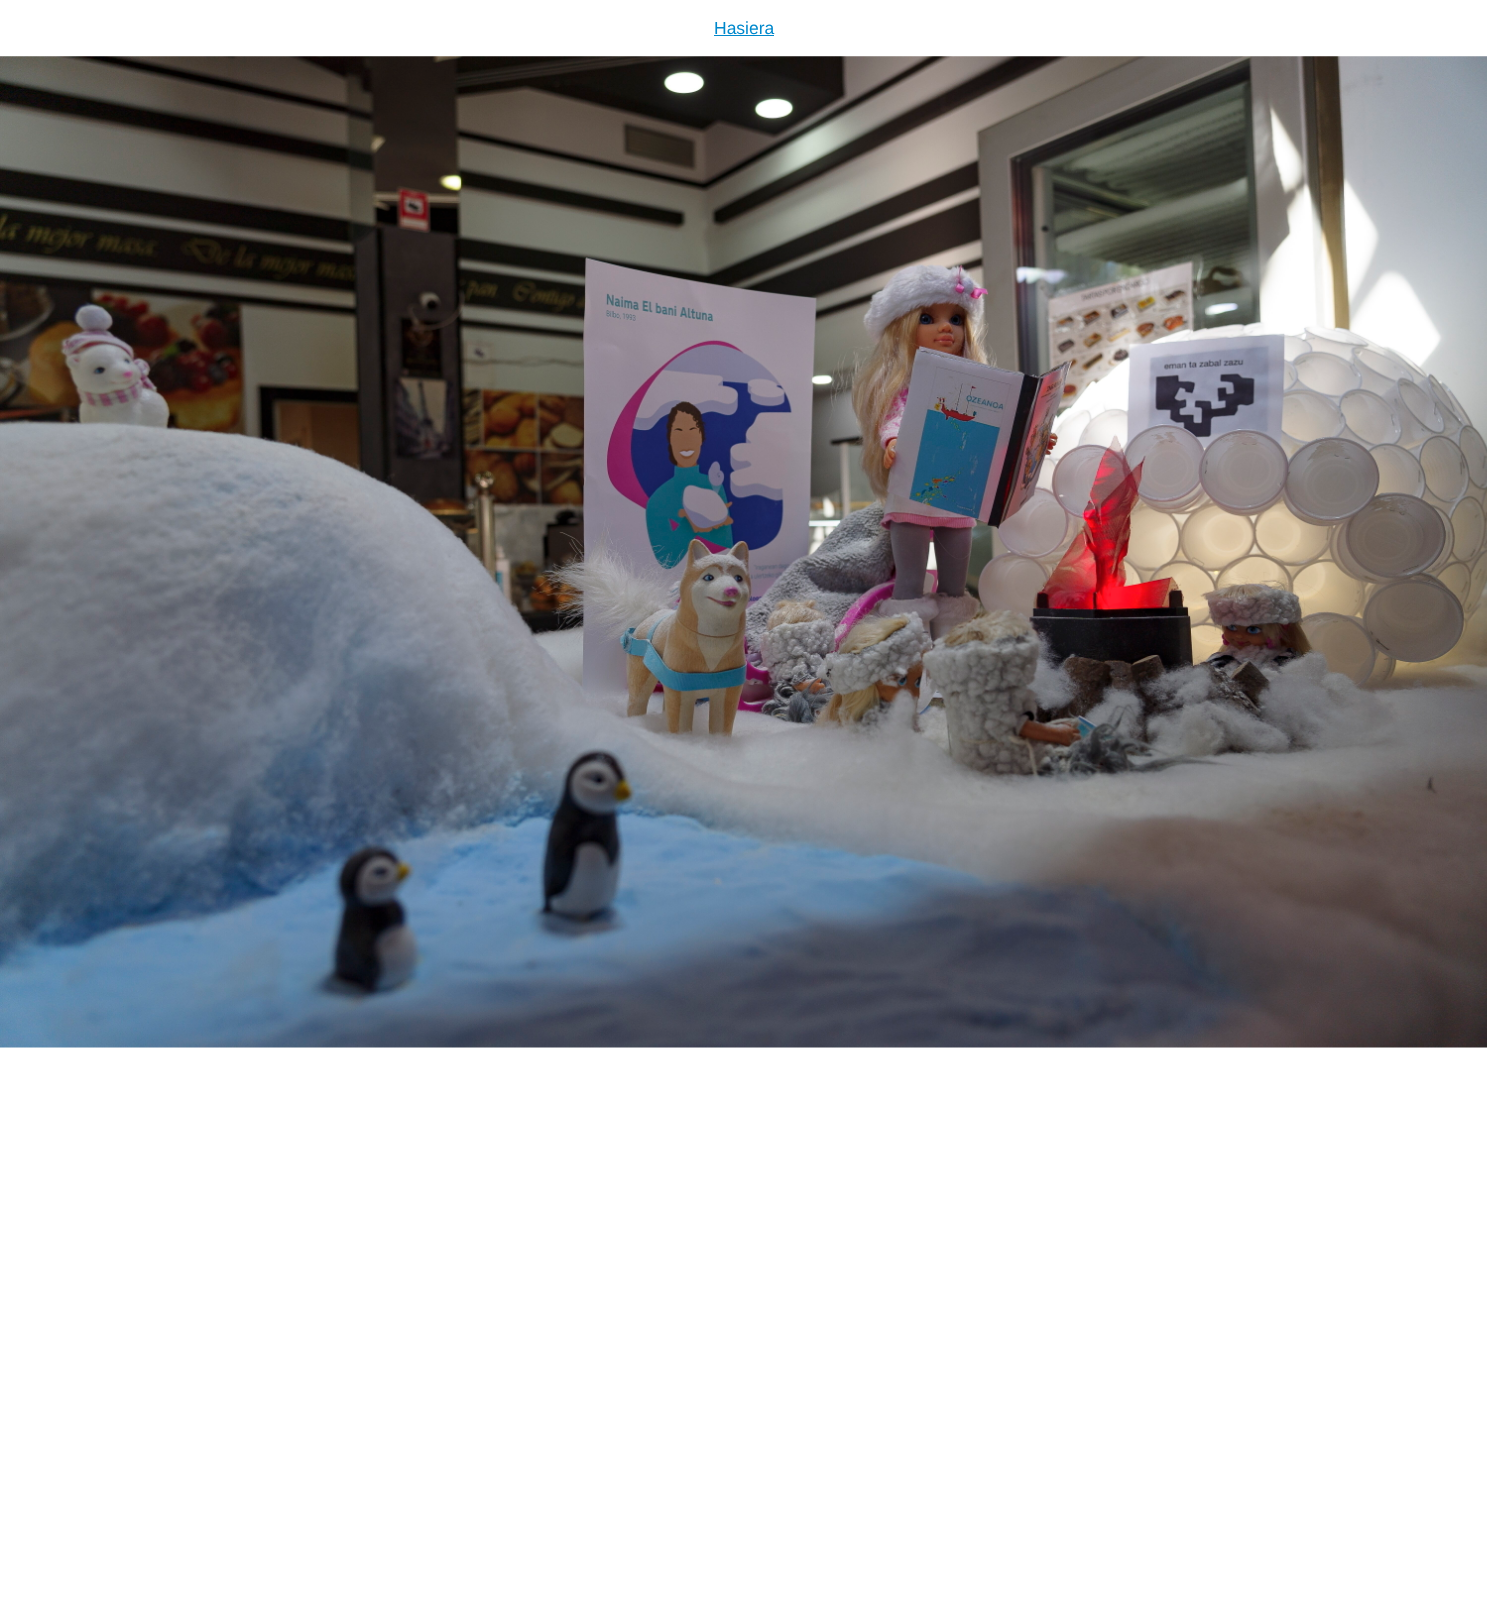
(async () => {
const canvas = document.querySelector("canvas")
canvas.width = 1487
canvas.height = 1620
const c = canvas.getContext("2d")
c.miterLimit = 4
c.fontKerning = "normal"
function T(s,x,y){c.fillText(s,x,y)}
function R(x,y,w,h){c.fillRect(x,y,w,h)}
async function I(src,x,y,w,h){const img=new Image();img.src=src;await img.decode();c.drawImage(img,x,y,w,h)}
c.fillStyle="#fff"
R(0,0,1487,1620)
c.font="17.5px Liberation Sans"
c.fillStyle="#08c"
T("Hasiera",714,34)
R(714,35,60,1)
await I("1.png",0,56,1487,992)
})()
